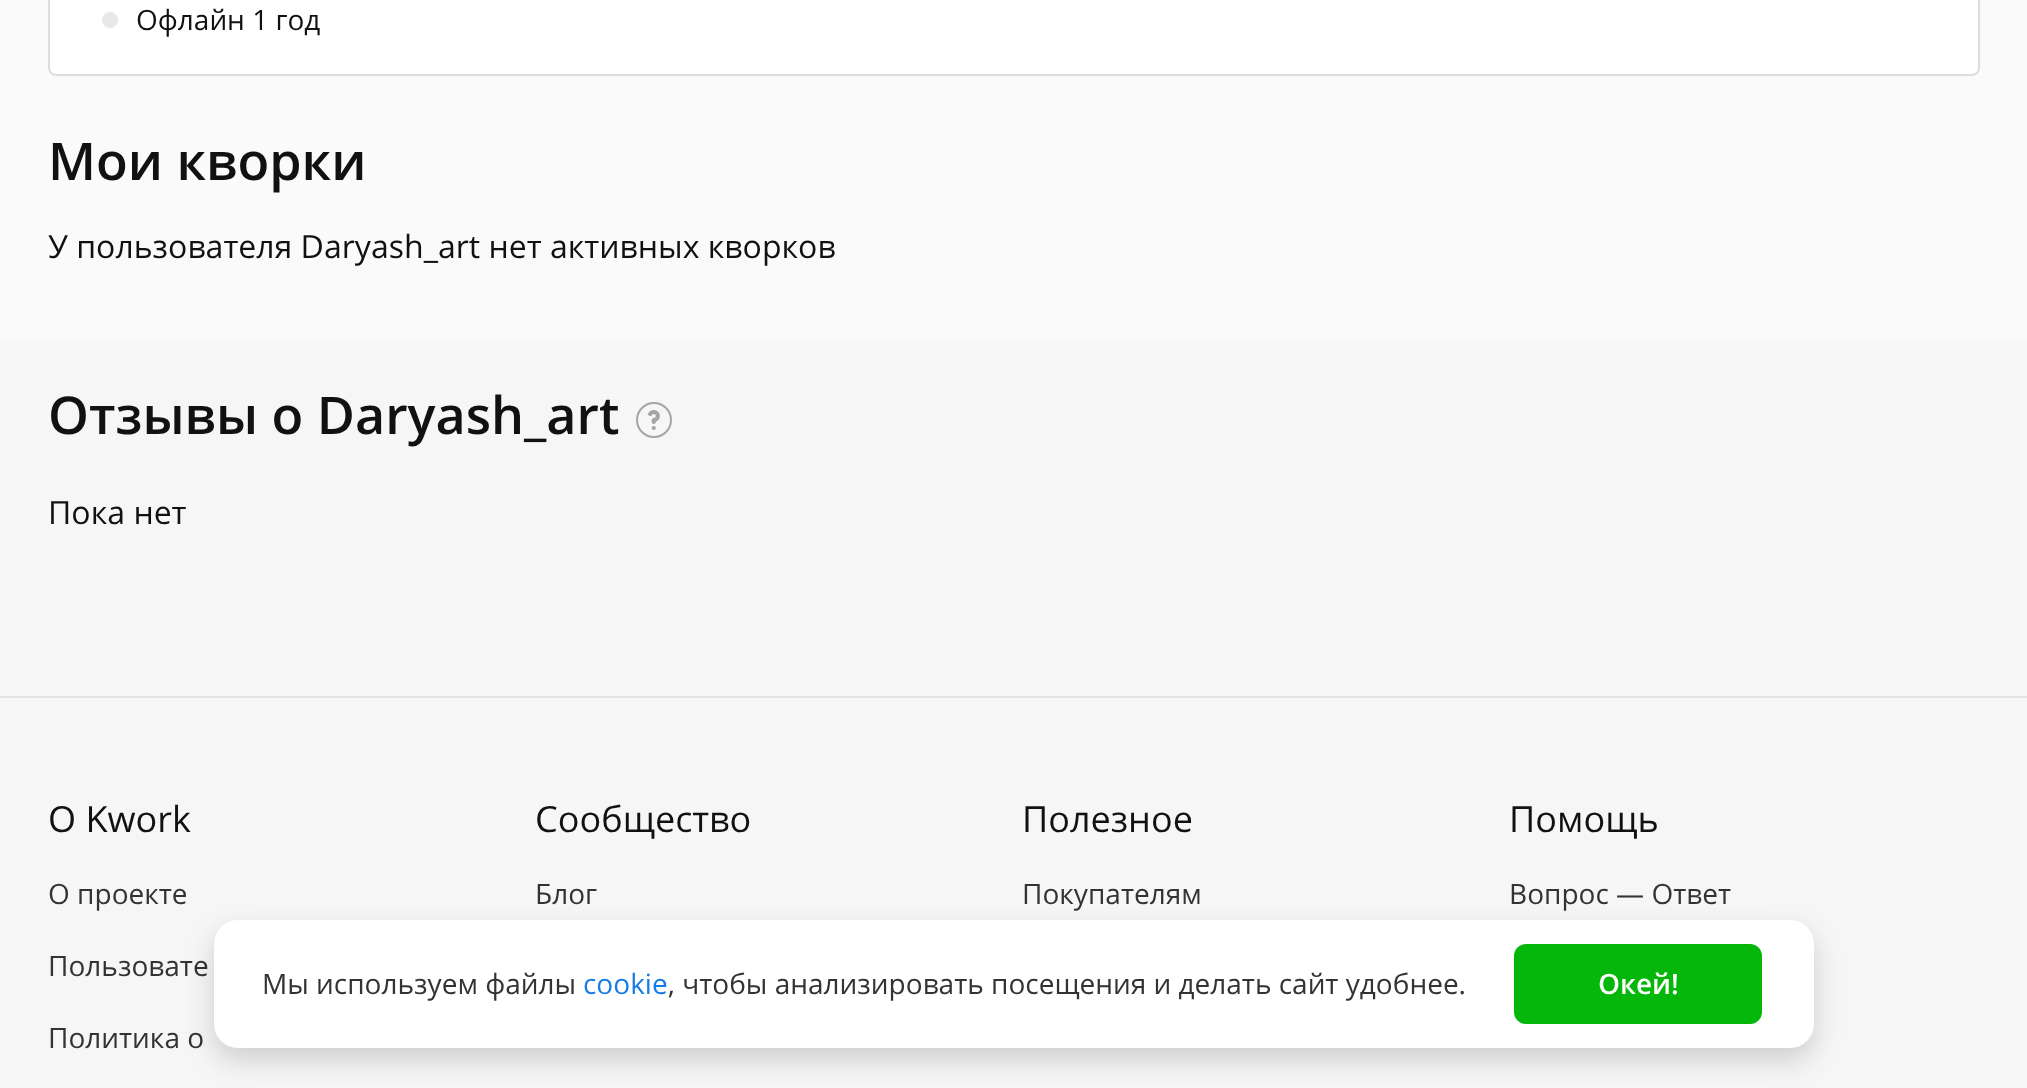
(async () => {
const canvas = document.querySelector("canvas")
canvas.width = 2027
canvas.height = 1088
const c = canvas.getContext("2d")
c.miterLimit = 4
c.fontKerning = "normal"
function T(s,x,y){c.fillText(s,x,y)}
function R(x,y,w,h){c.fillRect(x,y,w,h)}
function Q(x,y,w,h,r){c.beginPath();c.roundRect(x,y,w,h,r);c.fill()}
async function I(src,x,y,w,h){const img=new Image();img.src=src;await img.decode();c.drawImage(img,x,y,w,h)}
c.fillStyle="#f6f6f6"
R(0,0,2027,1088)
c.fillStyle="#fafafa"
R(0,0,2027,340)
c.fillStyle="#fff"
c.beginPath()
c.roundRect(49,-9,1930,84,7)
c.fill()
c.strokeStyle="#ddd"
c.lineWidth=2
c.stroke()
c.fillStyle="#e8e8e8"
c.beginPath()
c.arc(110,20,8,0,7)
c.fill()
c.font="28px Open Sans"
c.fillStyle="#111"
T("Офлайн 1 год",136,30)
c.font="600 52px Open Sans"
T("Мои кворки",48,180)
c.font="32px Open Sans"
T("У пользователя Daryash_art нет активных кворков",48,258)
c.font="600 52px Open Sans"
T("Отзывы о Daryash_art",48,434)
c.beginPath()
c.arc(654,420,17,0,7)
c.strokeStyle="#a5a5a5"
c.stroke()
await I("1.png",648,410,12,20)
c.font="32px Open Sans"
T("Пока нет",48,524)
c.fillStyle="#e2e2e2"
R(0,696,2027,2)
c.font="36px Open Sans"
c.fillStyle="#111"
T("О Kwork",48,832)
c.font="28px Open Sans"
c.fillStyle="#333"
T("О проекте",48,904)
T("Пользовате",48,976)
T("Политика о",48,1048)
c.font="36px Open Sans"
c.fillStyle="#111"
T("Сообщество",535,832)
c.font="28px Open Sans"
c.fillStyle="#333"
T("Блог",535,904)
c.font="36px Open Sans"
c.fillStyle="#111"
T("Полезное",1022,832)
c.font="28px Open Sans"
c.fillStyle="#333"
T("Покупателям",1022,904)
c.font="36px Open Sans"
c.fillStyle="#111"
T("Помощь",1509,832)
c.font="28px Open Sans"
c.fillStyle="#333"
T("Вопрос — Ответ",1509,904)
c.fillStyle="#00000029"
c.filter="blur(14px)"
c.beginPath()
c.roundRect(214,932,1600,128,24)
c.fill()
c.filter="none"
c.fillStyle="#fff"
Q(214,920,1600,128,24)
c.fillStyle="#333"
T("Мы используем файлы",262,994)
c.fillStyle="#177de5"
T("cookie",583,994)
c.fillStyle="#333"
T(", чтобы анализировать посещения и делать сайт удобнее.",668,994)
c.fillStyle="#04b70a"
c.beginPath()
c.roundRect(1515,945,246,78,11)
c.fill()
c.strokeStyle="#04b70a"
c.stroke()
c.font="600 28px Open Sans"
c.fillStyle="#fff"
T("Окей!",1598,994)
})()
